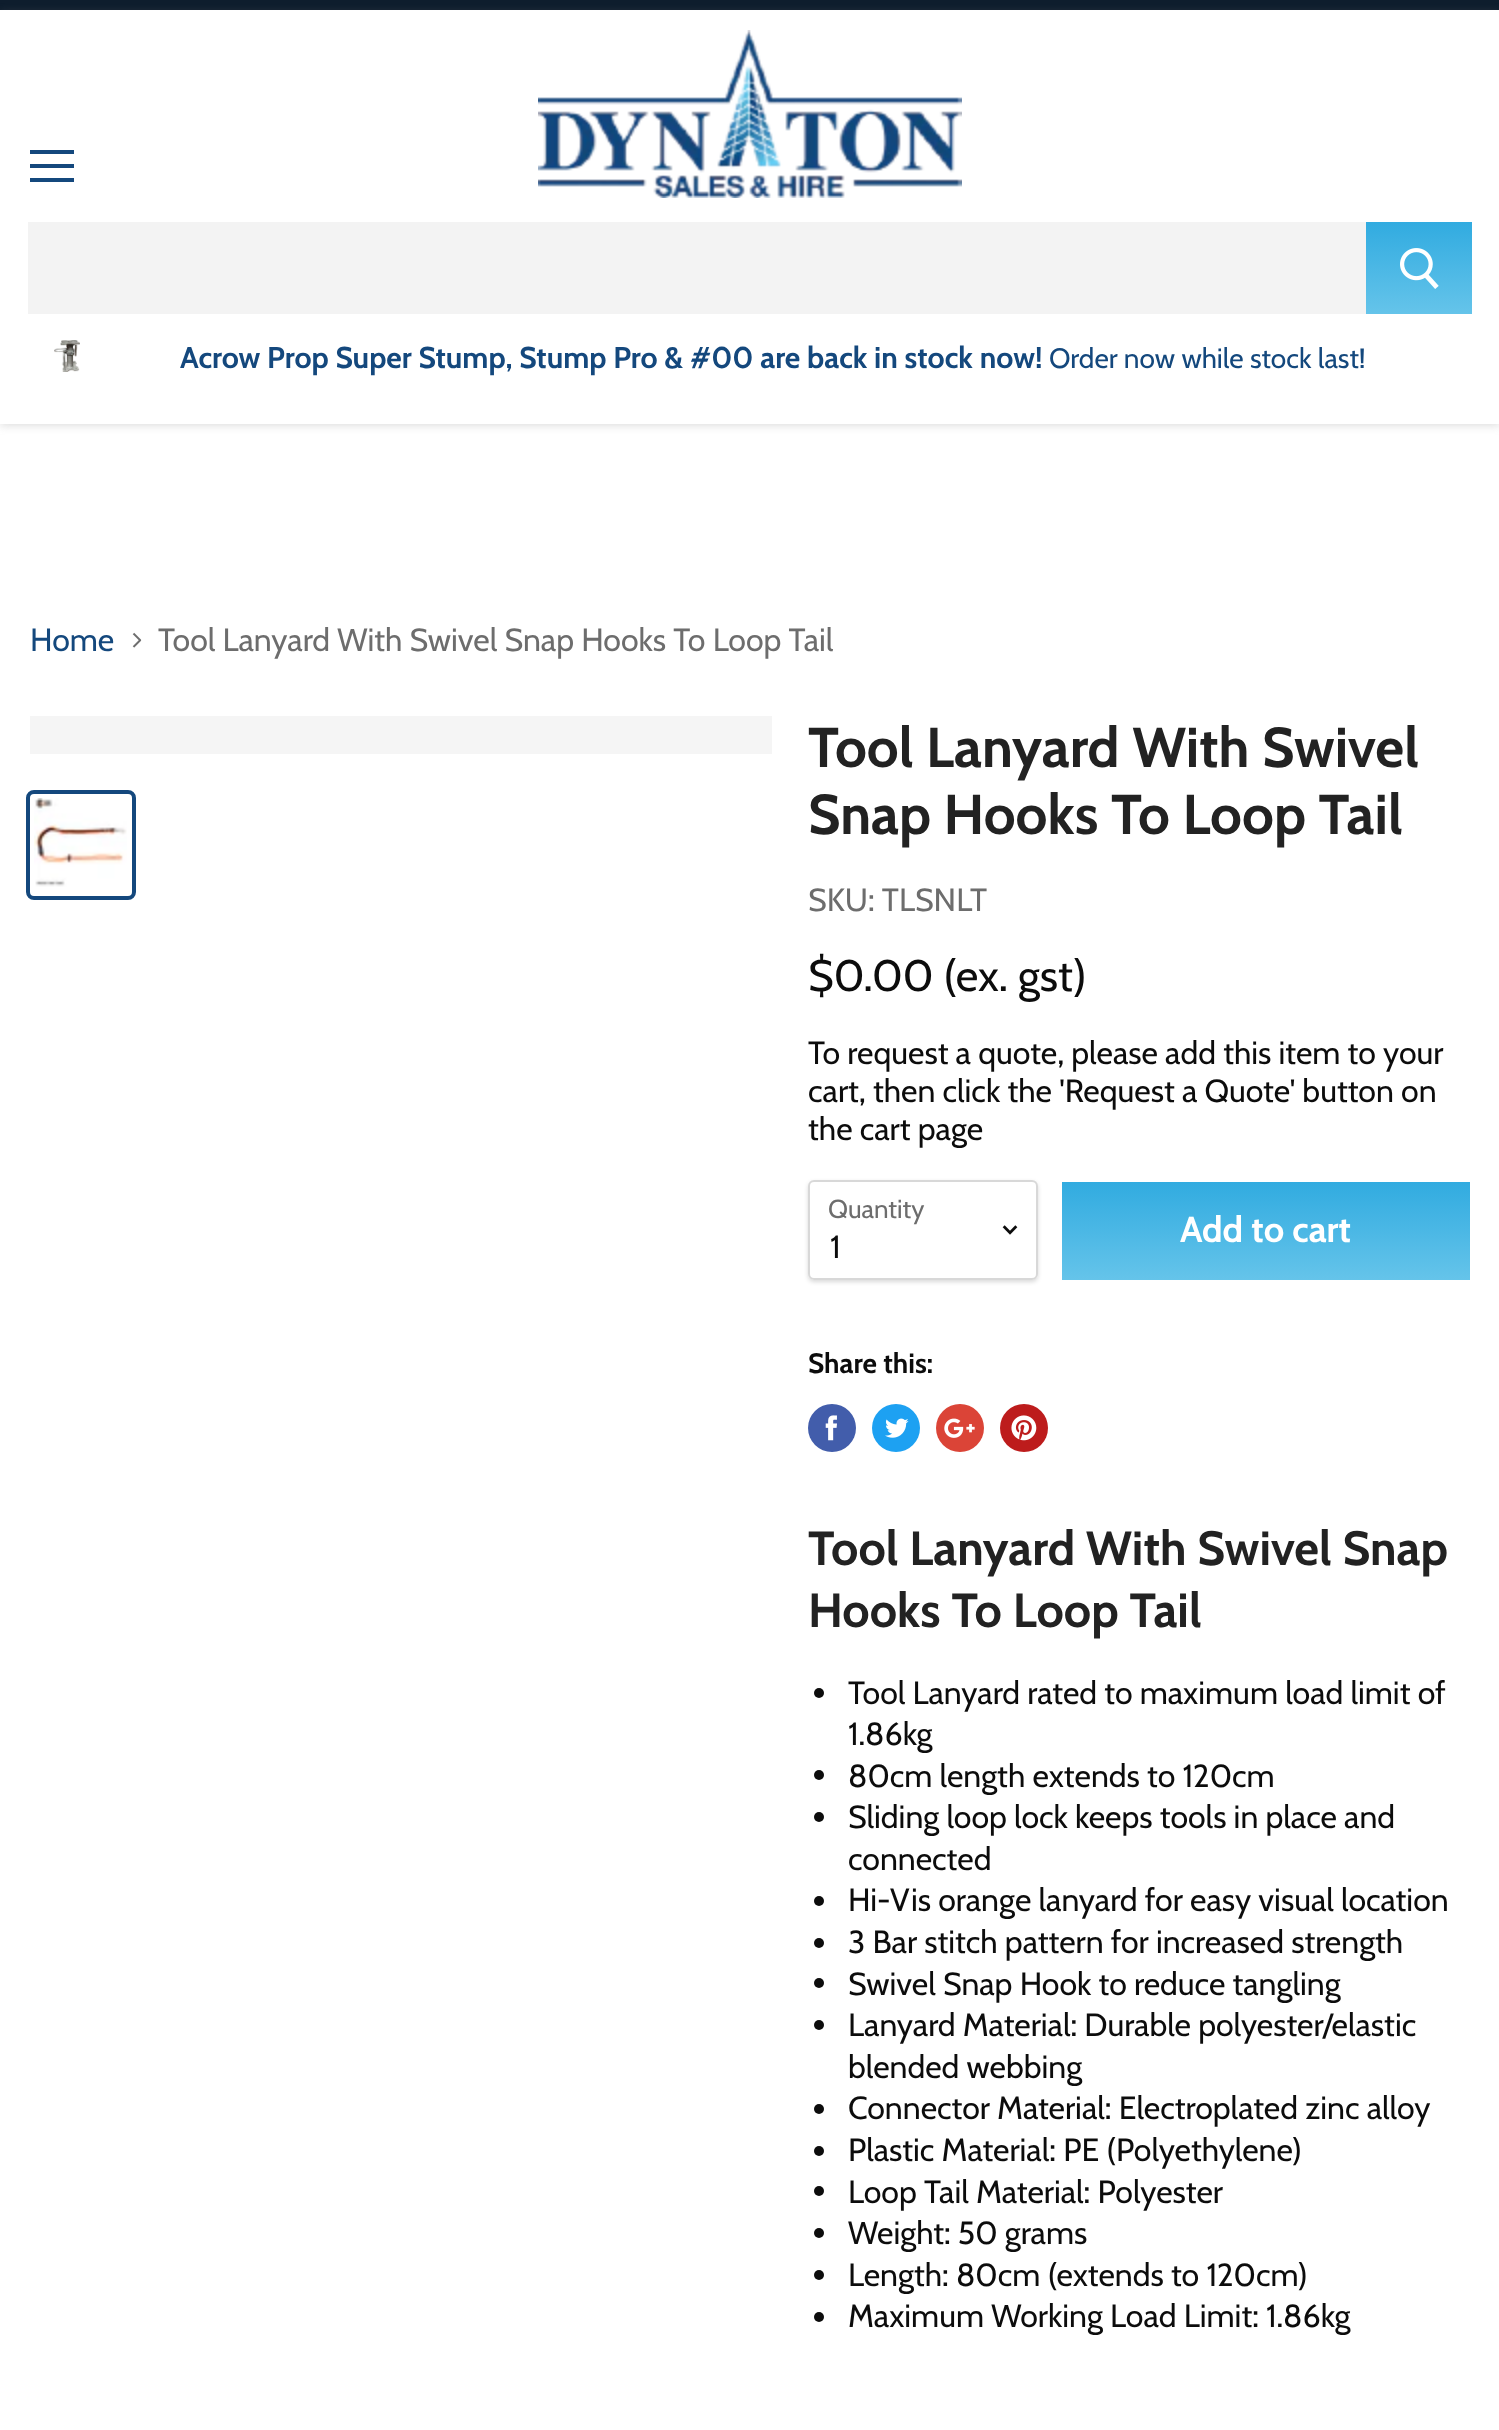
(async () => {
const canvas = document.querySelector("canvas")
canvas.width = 1499
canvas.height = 2430
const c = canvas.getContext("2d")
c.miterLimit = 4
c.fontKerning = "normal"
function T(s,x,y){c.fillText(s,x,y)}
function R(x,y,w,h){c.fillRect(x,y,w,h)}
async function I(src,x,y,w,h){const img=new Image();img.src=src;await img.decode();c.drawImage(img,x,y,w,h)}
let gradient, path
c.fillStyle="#fff"
R(0,0,1499,2430)
c.fillStyle="#0e1d2d"
R(0,0,1499,10)
c.save()
path = new Path2D("M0 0h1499v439h-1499zm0 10h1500v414h-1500z")
c.clip(path,"evenodd")
c.fillStyle="#7f7f7f40"
c.filter="blur(4px)"
c.beginPath()
c.rect(0,12,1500,414)
c.fill()
c.filter="none"
c.restore()
c.fillStyle="#14487d"
R(30,150,44,4)
R(30,164,44,4)
R(30,178,44,4)
await I("1.png",538,30,424,168)
c.fillStyle="#f3f3f3"
R(28,222,1338,92)
gradient = c.createLinearGradient(1419,222,1419,314)
gradient.addColorStop(0,"#31abe0")
gradient.addColorStop(1,"#65c4ea")
c.fillStyle = gradient
R(1366,222,106,92)
await I("2.png",1400,248,39,41)
await I("3.png",54,340,26,32)
c.font="bold 30px Cabin"
c.fillStyle="#14487d"
T("Acrow Prop Super Stump, Stump Pro & #00 are back in stock now!",180,368)
c.font="28px Cabin"
T("Order now while stock last!",1049,368)
c.font="32px Cabin"
T("Home",30,651)
await I("4.png",132,632,10,16)
c.fillStyle="#6d6d6d"
T("Tool Lanyard With Swivel Snap Hooks To Loop Tail",158,651)
c.fillStyle="#f5f5f5"
R(30,716,742,38)
c.beginPath()
c.roundRect(28,792,106,106,6)
c.strokeStyle="#14487d"
c.lineWidth=4
c.stroke()
await I("5.png",34,798,93,89)
c.font="bold 56px Cabin"
c.fillStyle="#222"
T("Tool Lanyard With Swivel",808,767)
T("Snap Hooks To Loop Tail",808,834)
c.font="32px Cabin"
c.fillStyle="#6d6d6d"
T("SKU: TLSNLT",808,911)
c.font="44px Cabin"
c.fillStyle="#0c0c0c"
T("$0.00 (ex. gst)",808,991)
c.font="32px Cabin"
T("To request a quote, please add this item to your",808,1064)
T("cart, then click the 'Request a Quote' button on",808,1102)
T("the cart page",808,1140)
c.save()
path = new Path2D("M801 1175h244v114h-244zm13 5h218c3.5 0 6 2.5 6 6v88c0 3.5-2.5 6-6 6h-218c-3.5 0-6-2.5-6-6v-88c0-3.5 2.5-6 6-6z")
c.clip(path,"evenodd")
c.fillStyle="#00000026"
c.filter="blur(2px)"
c.beginPath()
c.roundRect(808,1182,230,100,6)
c.fill()
c.filter="none"
c.restore()
c.beginPath()
c.roundRect(809,1181,228,98,5)
c.strokeStyle="#7f7f7f4d"
c.lineWidth=2
c.stroke()
c.font="26px Cabin"
c.fillStyle="#6d6d6d"
T("Quantity",828,1218)
await I("6.png",1002,1225,16,10)
c.font="32px Cabin"
c.fillStyle="#0c0c0c"
T("1",830,1258)
gradient = c.createLinearGradient(1266,1182,1266,1280)
gradient.addColorStop(0,"#31abe0")
gradient.addColorStop(1,"#65c4ea")
c.fillStyle = gradient
R(1062,1182,408,98)
c.font="bold 36px Cabin"
c.fillStyle="#fff"
T("Add to cart",1180,1242)
c.font="bold 28px Cabin"
c.fillStyle="#0c0c0c"
T("Share this:",808,1373)
c.fillStyle="#425dab"
c.beginPath()
c.arc(832,1428,24,0,7)
c.fill()
await I("7.png",825,1415,12,26)
c.fillStyle="#1da1f2"
c.beginPath()
c.arc(896,1428,24,0,7)
c.fill()
await I("8.png",885,1418,24,20)
c.fillStyle="#db4437"
c.beginPath()
c.arc(960,1428,24,0,7)
c.fill()
await I("9.png",944,1418,31,20)
c.fillStyle="#bd1c1c"
c.beginPath()
c.arc(1024,1428,24,0,7)
c.fill()
await I("10.png",1011,1415,26,26)
c.font="bold 48px Cabin"
c.fillStyle="#222"
T("Tool Lanyard With Swivel Snap",808,1565)
T("Hooks To Loop Tail",808,1627)
c.fillStyle="#0c0c0c"
c.beginPath()
c.arc(819,1693,5,0,7)
c.fill()
c.font="32px Cabin"
T("Tool Lanyard rated to maximum load limit of",848,1704)
T("1.86kg",848,1745)
c.beginPath()
c.arc(819,1775,5,0,7)
c.fill()
T("80cm length extends to 120cm",848,1787)
c.beginPath()
c.arc(819,1817,5,0,7)
c.fill()
T("Sliding loop lock keeps tools in place and",848,1828)
T("connected",848,1870)
c.beginPath()
c.arc(819,1901,5,0,7)
c.fill()
T("Hi-Vis orange lanyard for easy visual location",848,1911)
c.beginPath()
c.arc(819,1943,5,0,7)
c.fill()
T("3 Bar stitch pattern for increased strength",848,1953)
c.beginPath()
c.arc(819,1983,5,0,7)
c.fill()
T("Swivel Snap Hook to reduce tangling",848,1995)
c.beginPath()
c.arc(819,2025,5,0,7)
c.fill()
T("Lanyard Material: Durable polyester/elastic",848,2036)
T("blended webbing",848,2078)
c.beginPath()
c.arc(819,2109,5,0,7)
c.fill()
T("Connector Material: Electroplated zinc alloy",848,2119)
c.beginPath()
c.arc(819,2151,5,0,7)
c.fill()
T("Plastic Material: PE (Polyethylene)",848,2161)
c.beginPath()
c.arc(819,2191,5,0,7)
c.fill()
T("Loop Tail Material: Polyester",848,2203)
c.beginPath()
c.arc(819,2233,5,0,7)
c.fill()
T("Weight: 50 grams",848,2244)
c.beginPath()
c.arc(819,2275,5,0,7)
c.fill()
T("Length: 80cm (extends to 120cm)",848,2286)
c.beginPath()
c.arc(819,2317,5,0,7)
c.fill()
T("Maximum Working Load Limit: 1.86kg",848,2327)
})()
